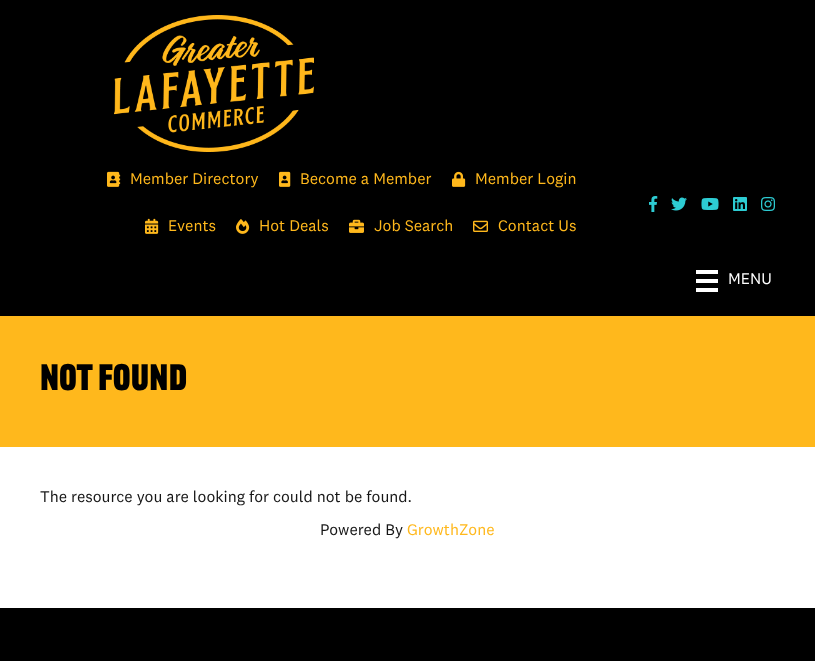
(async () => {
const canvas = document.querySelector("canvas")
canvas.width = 815
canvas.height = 661
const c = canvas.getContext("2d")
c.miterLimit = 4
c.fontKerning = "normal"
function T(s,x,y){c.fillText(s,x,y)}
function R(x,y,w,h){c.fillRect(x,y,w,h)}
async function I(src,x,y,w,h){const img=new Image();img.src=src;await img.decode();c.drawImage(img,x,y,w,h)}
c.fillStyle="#000"
R(0,0,815,661)
await I("1.png",114,15,200,137)
await I("2.png",107,171,14,16)
c.font="16px 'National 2'"
c.fillStyle="#ffb81c"
T("Member Directory",130,184)
await I("3.png",279,171,12,16)
T("Become a Member",300,184)
await I("4.png",452,171,14,16)
T("Member Login",475,184)
await I("5.png",145,218,14,16)
T("Events",168,231)
await I("6.png",236,219,14,15)
T("Hot Deals",259,231)
await I("7.png",349,219,15,14)
T("Job Search",374,231)
await I("8.png",473,220,15,12)
T("Contact Us",498,231)
await I("9.png",649,196,9,16)
await I("10.png",671,197,16,14)
await I("11.png",701,198,18,12)
await I("12.png",733,197,14,14)
await I("13.png",761,197,14,14)
c.fillStyle="#fff"
R(696,270,22,4)
R(696,279,22,4)
R(696,288,22,4)
T("MENU",728,284)
R(0,447,815,161)
c.fillStyle="#ffb81c"
R(0,316,815,131)
c.font="500 36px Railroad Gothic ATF"
c.fillStyle="#000"
T("Not Found",40,390)
c.font="16px 'National 2'"
c.fillStyle="#161616"
T("The resource you are looking for could not be found.",40,502)
T("Powered By",320,535)
c.fillStyle="#ffb81c"
T("GrowthZone",407,535)
})()
